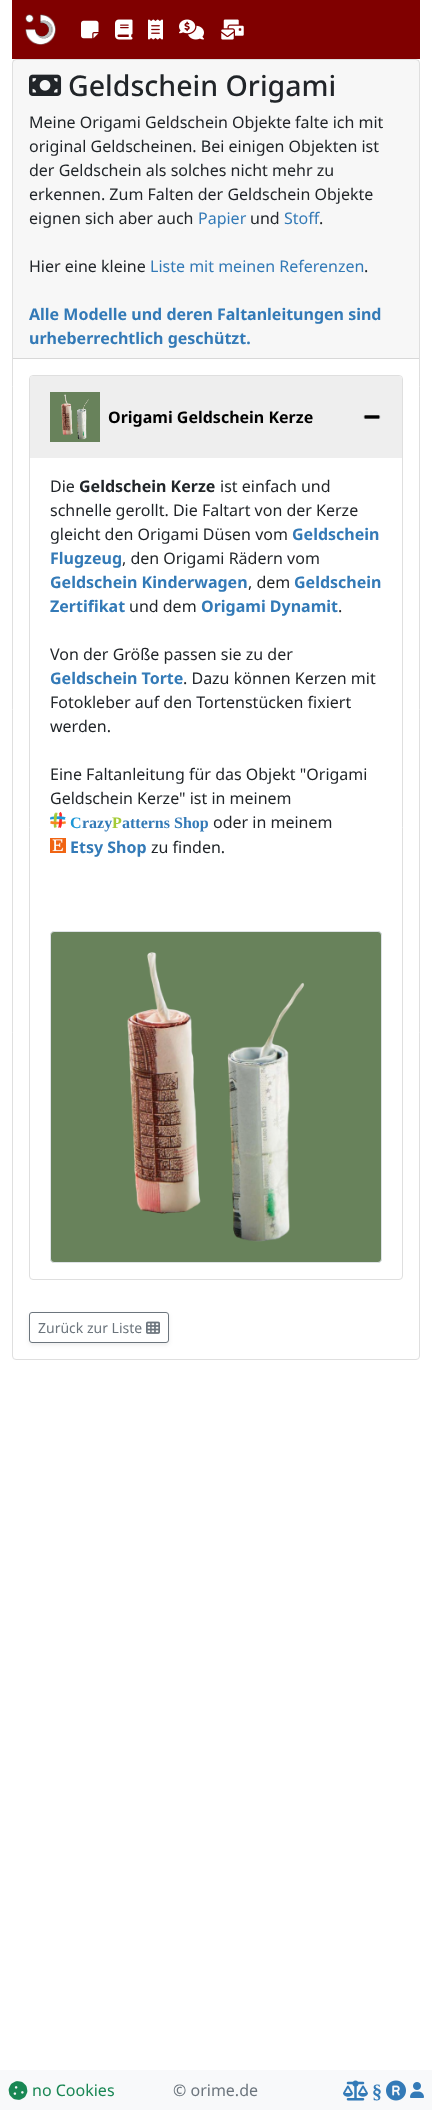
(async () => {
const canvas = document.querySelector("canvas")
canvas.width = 432
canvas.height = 2110
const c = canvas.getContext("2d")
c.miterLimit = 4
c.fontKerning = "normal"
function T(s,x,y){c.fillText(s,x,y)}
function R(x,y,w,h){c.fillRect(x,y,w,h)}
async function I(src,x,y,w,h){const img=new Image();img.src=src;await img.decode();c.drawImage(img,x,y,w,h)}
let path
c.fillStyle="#fff"
R(0,0,432,2110)
c.fillStyle="#800000"
R(12,0,408,59)
await I("1.png",25,14,31,31)
await I("2.png",81,20,18,19)
await I("3.png",115,19,18,21)
await I("4.png",148,19,15,21)
await I("5.png",179,19,25,21)
await I("6.png",221,19,23,21)
c.beginPath()
c.roundRect(12.5,59.5,407,1300,3.5)
c.strokeStyle="#dfdfdf"
c.stroke()
c.fillStyle="#00000008"
R(13,60,406,298)
c.fillStyle="#d8d8d8"
R(13,358,406,1)
await I("7.png",29,74,33,22)
c.font="500 28.5px Noto Sans"
c.fillStyle="#212529"
T("Geldschein Origami",68,96)
c.font="16px Noto Sans"
T("Meine Origami Geldschein Objekte falte ich mit",29,128)
T("original Geldscheinen. Bei einigen Objekten ist",29,152)
T("der Geldschein als solches nicht mehr zu",29,176)
T("erkennen. Zum Falten der Geldschein Objekte",29,200)
T("eignen sich aber auch",29,224)
c.fillStyle="#337ab7"
T("Papier",198,224)
c.fillStyle="#212529"
T("und",250,224)
c.fillStyle="#337ab7"
T("Stoff",284,224)
c.fillStyle="#212529"
T(".",319,224)
T("Hier eine kleine",29,272)
c.fillStyle="#337ab7"
T("Liste mit meinen Referenzen",150,272)
c.fillStyle="#212529"
T(".",364,272)
c.font="bold 16px Noto Sans"
c.fillStyle="#337ab7"
T("Alle Modelle und deren Faltanleitungen sind",29,320)
T("urheberrechtlich geschützt.",29,344)
c.beginPath()
c.roundRect(29.5,375.5,373,904,3.5)
c.stroke()
c.fillStyle="#eee"
c.beginPath()
c.roundRect(30,376,372,82,[3,3,0,0])
c.fill()
c.fillStyle="#68825b"
R(50,392,50,50)
await I("8.png",61,394,28,46)
c.fillStyle="#000"
T("Origami Geldschein Kerze",108,423)
await I("9.png",363,415,18,4)
c.font="16px Noto Sans"
c.fillStyle="#212529"
T("Die",50,492)
c.font="bold 16px Noto Sans"
T("Geldschein Kerze",79,492)
c.font="16px Noto Sans"
T("ist einfach und",220,492)
T("schnelle gerollt. Die Faltart von der Kerze",50,516)
T("gleicht den Origami Düsen vom",50,540)
c.font="bold 16px Noto Sans"
c.fillStyle="#337ab7"
T("Geldschein",292,540)
T("Flugzeug",50,564)
c.font="16px Noto Sans"
c.fillStyle="#212529"
T(", den Origami Rädern vom",122,564)
c.font="bold 16px Noto Sans"
c.fillStyle="#337ab7"
T("Geldschein Kinderwagen",50,588)
c.font="16px Noto Sans"
c.fillStyle="#212529"
T(", dem",248,588)
c.font="bold 16px Noto Sans"
c.fillStyle="#337ab7"
T("Geldschein",294,588)
T("Zertifikat",50,612)
c.font="16px Noto Sans"
c.fillStyle="#212529"
T("und dem",129,612)
c.font="bold 16px Noto Sans"
c.fillStyle="#337ab7"
T("Origami Dynamit",201,612)
c.font="16px Noto Sans"
c.fillStyle="#212529"
T(".",338,612)
T("Von der Größe passen sie zu der",50,660)
c.font="bold 16px Noto Sans"
c.fillStyle="#337ab7"
T("Geldschein Torte",50,684)
c.font="16px Noto Sans"
c.fillStyle="#212529"
T(". Dazu können Kerzen mit",183,684)
T("Fotokleber auf den Tortenstücken fixiert",50,708)
T("werden.",50,732)
T("Eine Faltanleitung für das Objekt \"Origami",50,780)
T("Geldschein Kerze\" ist in meinem",50,804)
await I("10.png",50,812,16,16)
c.font="bold 16px Liberation Serif"
c.fillStyle="#1c97d7"
T("C",70,828)
c.fillStyle="#337ab7"
T("razy",82,828)
c.fillStyle="#a4cb37"
T("P",112,828)
c.fillStyle="#337ab7"
T("atterns Shop",122,828)
c.font="16px Noto Sans"
c.fillStyle="#212529"
T("oder in meinem",213,828)
await I("11.png",50,838,16,15)
c.font="bold 16px Noto Sans"
c.fillStyle="#337ab7"
T("Etsy Shop",70,853)
c.font="16px Noto Sans"
c.fillStyle="#212529"
T("zu finden.",151,853)
c.fillStyle="#68825b"
c.beginPath()
c.roundRect(50.5,931.5,331,331,3.5)
c.fill()
c.strokeStyle="#dee2e6"
c.stroke()
await I("12.png",127,952,178,290)
c.save()
path = new Path2D("M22 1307h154v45h-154zm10 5h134c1.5 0 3 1.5 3 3v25c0 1.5-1.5 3-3 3h-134c-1.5 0-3-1.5-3-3v-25c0-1.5 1.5-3 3-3z")
c.clip(path,"evenodd")
c.fillStyle="#00000012"
c.filter="blur(2px)"
c.beginPath()
c.roundRect(29,1314,140,31,3)
c.fill()
c.filter="none"
c.restore()
c.beginPath()
c.roundRect(29.5,1312.5,139,30,2.5)
c.strokeStyle="#6c757d"
c.stroke()
c.font="14px Noto Sans"
c.fillStyle="#6c757d"
T("Zurück zur Liste",38,1333)
await I("13.png",146,1321,14,13)
c.fillStyle="#f8f9fa"
R(0,2070,432,40)
await I("14.png",8,2081,20,19)
c.font="16px Noto Sans"
c.fillStyle="#198754"
T("no Cookies",32,2096)
c.fillStyle="#6c757d"
T("© orime.de",173,2096)
await I("15.png",343,2080,25,21)
c.font="bold 20px Liberation Serif"
c.fillStyle="#337ab7"
T("§",372,2098)
await I("16.png",386,2080,20,21)
await I("17.png",410,2082,14,16)
})()
